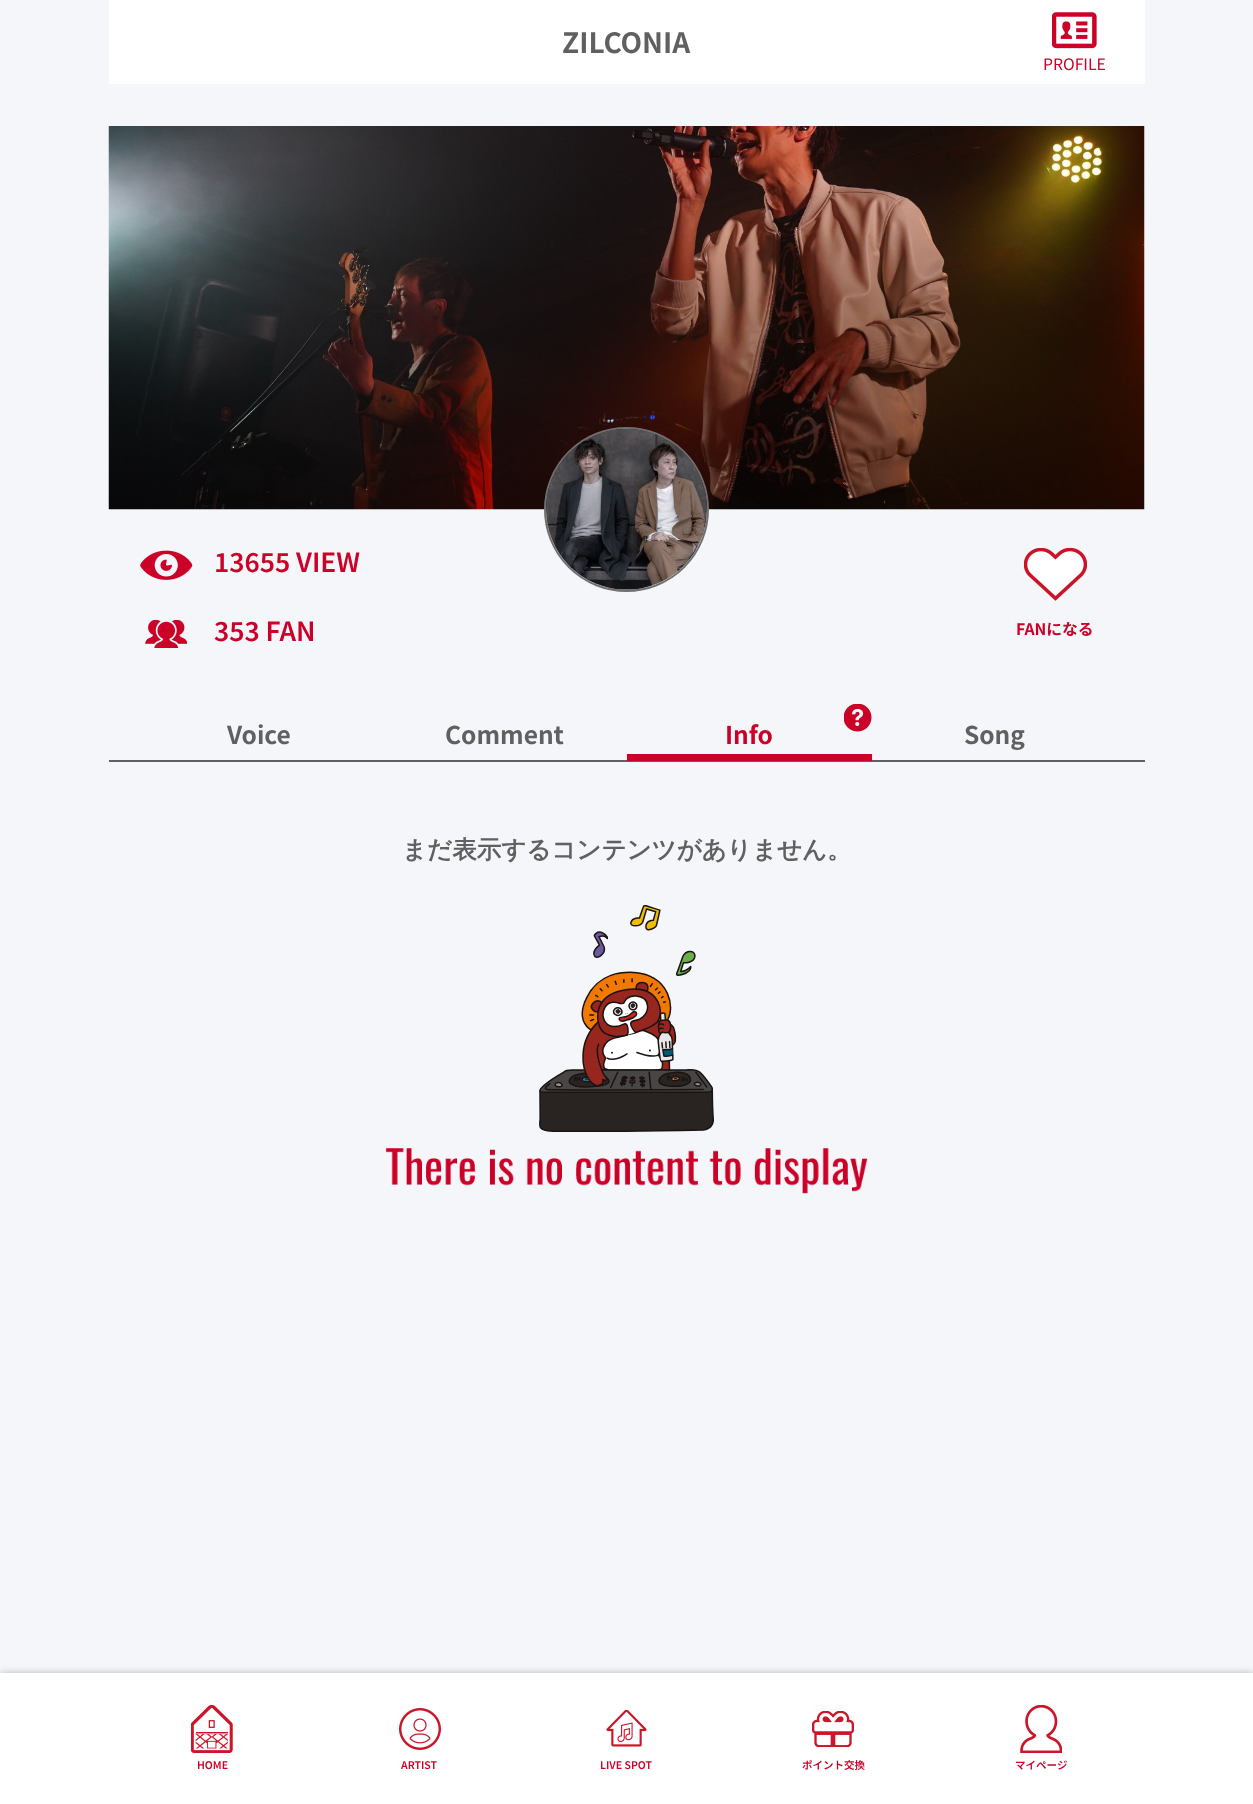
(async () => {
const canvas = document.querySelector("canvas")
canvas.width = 1253
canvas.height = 1804
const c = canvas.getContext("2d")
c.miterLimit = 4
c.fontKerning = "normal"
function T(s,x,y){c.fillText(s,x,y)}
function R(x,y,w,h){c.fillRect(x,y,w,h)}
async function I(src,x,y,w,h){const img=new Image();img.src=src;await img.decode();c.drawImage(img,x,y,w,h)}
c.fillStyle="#f4f6fa"
R(0,0,1253,1804)
c.fillStyle="#fff"
R(109,0,1036,84)
c.font="bold 28px Noto Sans JP"
c.fillStyle="#606060"
T("ZILCONIA",562,53)
await I("1.png",1052,12,45,37)
c.font="15.75px Noto Sans JP"
c.fillStyle="#cb0128"
T("PROFILE",1043,70)
await I("2.png",108,126,1037,384)
c.beginPath()
c.arc(626.5,509.5,81.5,0,7)
c.strokeStyle="#707070"
c.lineWidth=2
c.stroke()
await I("3.png",546,429,161,161)
await I("4.png",140,550,53,30)
c.font="600 26.25px Noto Sans JP"
T("13655 VIEW",214,572)
await I("5.png",145,620,42,28)
T("353 FAN",214,641)
await I("6.png",1024,548,63,53)
c.font="bold 15.75px Noto Sans JP"
T("FANになる",1016,635)
c.fillStyle="#606060"
R(109,760,1036,2)
c.font="bold 24.5px Noto Sans JP"
T("Voice",227,744)
T("Comment",445,744)
await I("7.png",844,704,28,28)
c.fillStyle="#cb0128"
R(627,754,245,7)
T("Info",725,744)
c.fillStyle="#606060"
T("Song",964,744)
c.font="bold 24.5px WenQuanYi Zen Hei"
T("まだ表示するコンテンツがありません。",402,858)
await I("8.png",539,905,175,227)
await I("9.png",385,1148,483,46)
c.fillStyle="#00000040"
c.filter="blur(3.5px)"
c.beginPath()
c.rect(0,1673,1253,131)
c.fill()
c.filter="none"
c.fillStyle="#fff"
R(0,1673,1253,131)
await I("10.png",191,1705,42,48)
c.font="600 10.5px Noto Sans JP"
c.fillStyle="#cb0128"
T("HOME",197,1769)
await I("11.png",399,1708,42,42)
T("ARTIST",401,1769)
await I("12.png",606,1710,41,37)
T("LIVE SPOT",600,1769)
await I("13.png",812,1711,42,36)
T("ポイント交換",802,1769)
await I("14.png",1020,1705,42,48)
T("マイページ",1015,1769)
})()
